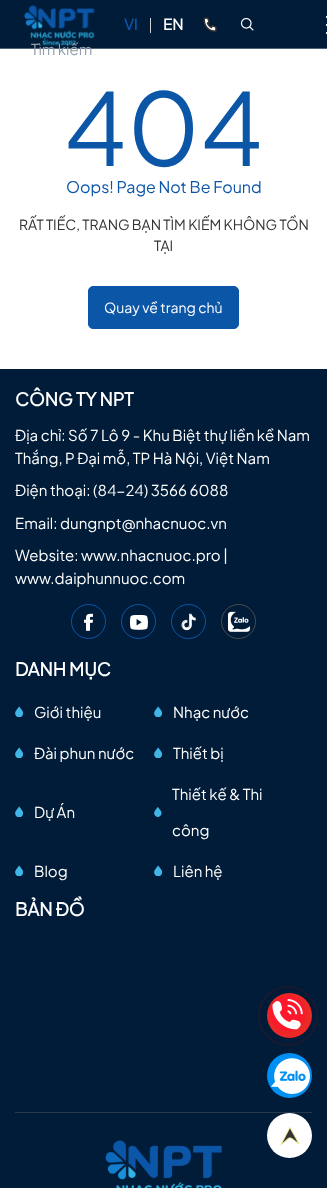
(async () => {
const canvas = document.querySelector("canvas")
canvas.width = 327
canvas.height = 1188
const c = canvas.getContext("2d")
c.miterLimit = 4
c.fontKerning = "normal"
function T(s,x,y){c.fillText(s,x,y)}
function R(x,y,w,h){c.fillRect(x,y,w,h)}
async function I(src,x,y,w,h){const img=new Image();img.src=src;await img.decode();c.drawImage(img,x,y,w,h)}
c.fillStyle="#fff"
R(0,0,327,1188)
c.fillStyle="#001c38"
R(0,0,327,48)
c.fillStyle="#4d6074"
R(0,48,327,1)
await I("1.png",24,5,71,41)
c.font="bold 15px Plus Jakarta Sans"
c.fillStyle="#0b56a7"
T("VI",124,30)
c.fillStyle="#d2d2d2"
R(150,18,1,15)
c.fillStyle="#fff"
T("EN",163,30)
await I("2.png",203,17,14,15)
await I("3.png",240,17,14,14)
R(326,24,1,2)
R(326,16,1,2)
R(326,32,1,2)
c.font="15px Plus Jakarta Sans"
c.fillStyle="#919eab"
T("Tìm kiếm",31,55)
c.font="100px Plus Jakarta Sans"
c.fillStyle="#0b56a7"
T("404",64,166)
c.font="16px Plus Jakarta Sans"
T("Oops! Page Not Be Found",66,193)
c.font="14px Plus Jakarta Sans"
c.fillStyle="#333"
T("RẤT TIẾC, TRANG BẠN TÌM KIẾM KHÔNG TỒN",19,230)
T("TẠI",154,251)
c.fillStyle="#0b56a7"
c.beginPath()
c.roundRect(88.5,286.5,150,42,4.5)
c.fill()
c.strokeStyle="#0b56a7"
c.stroke()
c.fillStyle="#fff"
T("Quay về trang chủ",104,313)
c.fillStyle="#001c38"
R(0,369,327,819)
c.fillStyle="#27394b"
R(15,1112,297,1)
c.font="bold 18px Plus Jakarta Sans"
c.fillStyle="#fff"
T("CÔNG TY NPT",15,406)
c.font="15px Plus Jakarta Sans"
T("Địa chỉ: Số 7 Lô 9 - Khu Biệt thự liền kề Nam",15,441)
T("Thắng, P Đại mỗ, TP Hà Nội, Việt Nam",15,464)
T("Điện thoại: (84-24) 3566 6088",15,496)
T("Email: dungnpt@nhacnuoc.vn",15,529)
T("Website: www.nhacnuoc.pro |",15,561)
T("www.daiphunnuoc.com",15,584)
c.beginPath()
c.arc(88.5,621.5,17,0,7)
c.stroke()
await I("4.png",84,613,9,18)
c.beginPath()
c.arc(138.5,621.5,17,0,7)
c.stroke()
await I("5.png",130,615,18,15)
c.beginPath()
c.arc(188.5,621.5,17,0,7)
c.stroke()
await I("6.png",181,613,15,18)
c.beginPath()
c.arc(238.5,621.5,17,0,7)
c.strokeStyle="#4c4c4c"
c.stroke()
await I("7.png",228,611,22,21)
c.font="bold 18px Plus Jakarta Sans"
T("DANH MỤC",15,676)
await I("8.png",15,706,8,11)
c.font="15px Plus Jakarta Sans"
T("Giới thiệu",34,718)
await I("8.png",154,706,8,11)
T("Nhạc nước",173,718)
await I("8.png",15,747,8,11)
T("Đài phun nước",34,759)
await I("8.png",154,747,8,11)
T("Thiết bị",173,759)
await I("8.png",15,806,8,11)
T("Dự Án",34,818)
await I("9.png",154,807,8,10)
T("Thiết kế & Thi",172,800)
T("công",172,836)
await I("8.png",15,865,8,11)
T("Blog",34,877)
await I("8.png",154,865,8,11)
T("Liên hệ",173,877)
c.font="bold 18px Plus Jakarta Sans"
T("BẢN ĐỒ",15,916)
await I("10.png",105,1140,117,48)
c.fillStyle="#f32929"
c.beginPath()
c.arc(289.5,1015.5,22.5,0,7)
c.fill()
c.beginPath()
c.arc(288,1016,29,0,7)
c.strokeStyle="#1a1932"
c.lineWidth=2
c.stroke()
c.fillStyle="#0000001a"
c.filter="blur(5px)"
c.beginPath()
c.roundRect(270,996,35,35,17.5)
c.fill()
c.filter="none"
c.fillStyle="#ff182b"
c.beginPath()
c.arc(287.5,1013.5,17.5,0,7)
c.fill()
await I("11.png",272,999,31,31)
c.fillStyle="#0090f3"
c.beginPath()
c.arc(289.5,1075.5,22.5,0,7)
c.fill()
await I("12.png",271,1058,39,36)
c.fillStyle="#fff"
c.beginPath()
c.arc(289.5,1135.5,22.5,0,7)
c.fill()
await I("13.png",280,1127,20,19)
})()
